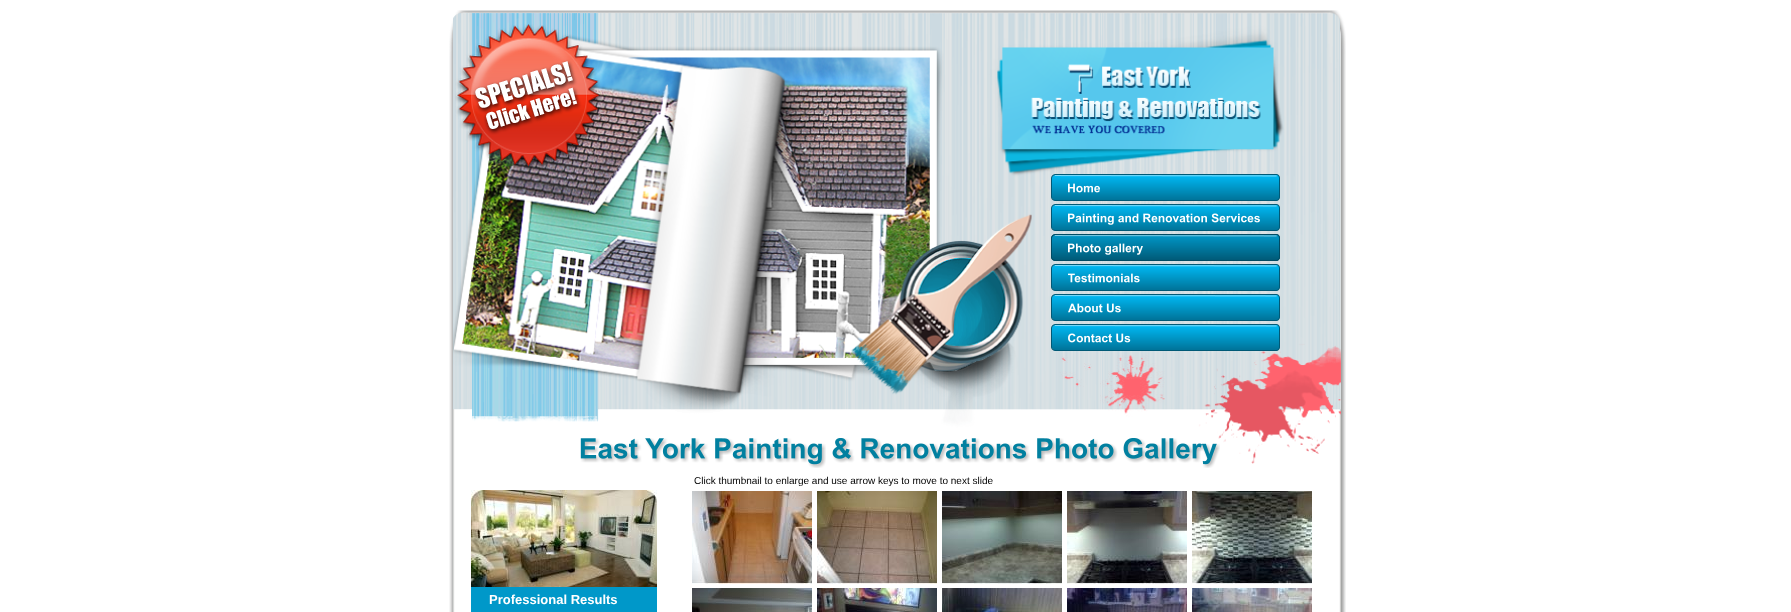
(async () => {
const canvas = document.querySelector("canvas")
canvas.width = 1791
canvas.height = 612
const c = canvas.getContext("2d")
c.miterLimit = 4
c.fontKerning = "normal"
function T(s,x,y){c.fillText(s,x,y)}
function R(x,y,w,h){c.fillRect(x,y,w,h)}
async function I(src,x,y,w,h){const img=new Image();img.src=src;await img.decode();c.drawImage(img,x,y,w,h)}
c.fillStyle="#fff"
R(0,0,1791,612)
await I("11.png",580,438,640,30)
await I("1.png",449,10,897,602)
await I("2.png",453,13,888,451)
await I("3.png",455,24,147,146)
await I("4.png",1051,174,229,27)
await I("5.png",1051,204,229,27)
await I("6.png",1051,234,229,27)
await I("7.png",1051,234,229,27)
await I("8.png",1051,264,229,27)
await I("9.png",1051,294,229,27)
await I("10.png",1051,324,229,27)
c.font="10px Liberation Sans"
c.fillStyle="#000"
T("Click thumbnail to enlarge and use arrow keys to move to next slide",694,484)
await I("12.png",471,490,186,97)
await I("13.png",692,491,120,93)
await I("14.png",817,491,120,93)
await I("15.png",942,491,120,93)
await I("16.png",1067,491,120,93)
await I("17.png",1192,491,120,93)
c.fillStyle="#0098c9"
R(471,587,186,25)
await I("18.png",692,588,120,24)
await I("19.png",817,588,120,24)
await I("20.png",942,588,120,24)
await I("21.png",1067,588,120,24)
await I("22.png",1192,588,120,24)
c.font="bold 13px Liberation Sans"
c.fillStyle="#fff"
T("Professional Results",489,604)
})()
